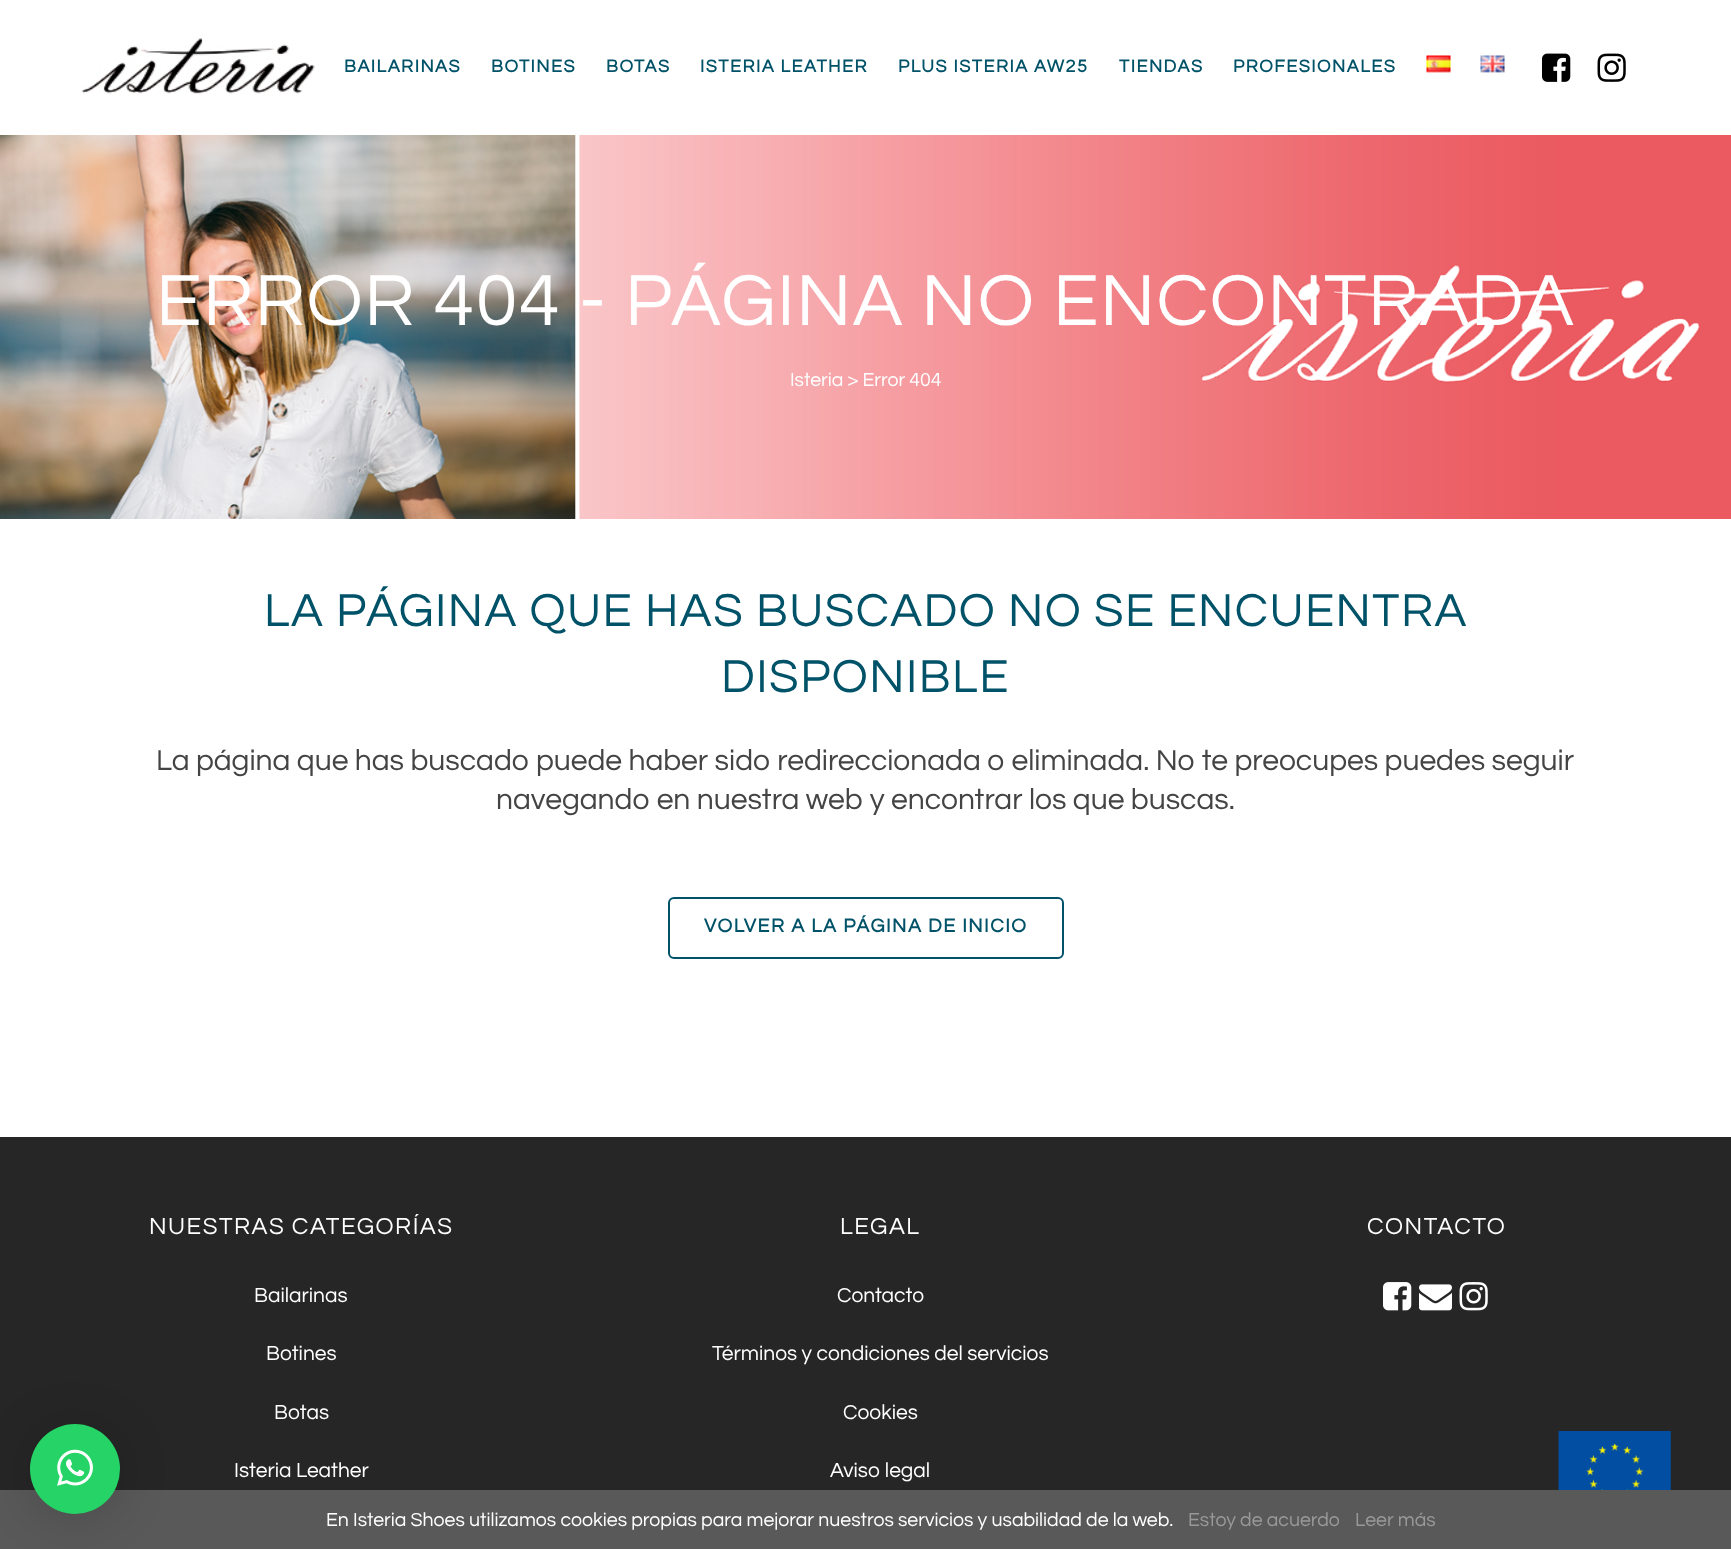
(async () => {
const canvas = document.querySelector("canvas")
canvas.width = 1731
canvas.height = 1549
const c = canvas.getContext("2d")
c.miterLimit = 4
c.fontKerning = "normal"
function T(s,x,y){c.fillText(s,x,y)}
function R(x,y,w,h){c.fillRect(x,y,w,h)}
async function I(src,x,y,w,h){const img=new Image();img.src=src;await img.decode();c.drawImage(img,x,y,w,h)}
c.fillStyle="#fff"
R(0,0,1731,1549)
c.fillStyle="#262626"
R(0,1137,1731,353)
c.fillStyle="#595959"
R(0,1490,1731,59)
c.fillStyle="#00000029"
c.filter="blur(24px)"
c.beginPath()
c.roundRect(30,1427,90,90,45)
c.fill()
c.filter="none"
c.fillStyle="#25d366"
c.beginPath()
c.arc(75,1469,45,0,7)
c.fill()
await I("1.png",57,1449,36,37)
await I("2.png",81,38,234,56)
c.letterSpacing="1.5px"
c.font="bold 18px Questrial"
c.fillStyle="#005268"
T("BAILARINAS",344,72)
T("BOTINES",491,72)
T("BOTAS",606,72)
T("ISTERIA LEATHER",700,72)
T("PLUS ISTERIA AW25",898,72)
T("TIENDAS",1119,72)
T("PROFESIONALES",1233,72)
await I("3.png",1426,55,25,18)
await I("4.png",1480,55,25,18)
await I("5.png",1542,53,29,29)
await I("6.png",1597,53,29,29)
await I("7.png",0,135,1731,384)
c.font="75px Questrial"
c.fillStyle="#fff"
T("ERROR 404 - PÁGINA NO ENCONTRADA",156,325)
c.letterSpacing="0px"
c.font="19.5px Questrial"
T("Isteria > Error 404",790,386)
c.letterSpacing="1.5px"
c.font="48px Questrial"
c.fillStyle="#005268"
T("LA PÁGINA QUE HAS BUSCADO NO SE ENCUENTRA",264,626)
T("DISPONIBLE",721,692)
c.letterSpacing="0px"
c.font="30px Questrial"
c.fillStyle="#444"
T("La página que has buscado puede haber sido redireccionada o eliminada. No te preocupes puedes seguir",156,770)
T("navegando en nuestra web y encontrar los que buscas.",496,809)
c.beginPath()
c.roundRect(669,898,394,60,5)
c.strokeStyle="#005268"
c.lineWidth=2
c.stroke()
c.letterSpacing="1.5px"
c.font="bold 19.5px Questrial"
c.fillStyle="#005268"
T("VOLVER A LA PÁGINA DE INICIO",704,932)
c.font="24px Questrial"
c.fillStyle="#fff"
T("NUESTRAS CATEGORÍAS",149,1234)
c.letterSpacing="0px"
c.font="21px Questrial"
T("Bailarinas",254,1302)
T("Botines",266,1360)
T("Botas",274,1419)
T("Isteria Leather",234,1477)
c.letterSpacing="1.5px"
c.font="24px Questrial"
T("LEGAL",840,1234)
c.letterSpacing="0px"
c.font="21px Questrial"
T("Contacto",837,1302)
T("Términos y condiciones del servicios",712,1360)
T("Cookies",843,1419)
T("Aviso legal",830,1477)
c.letterSpacing="1.5px"
c.font="24px Questrial"
T("CONTACTO",1367,1234)
await I("8.png",1383,1282,29,29)
await I("9.png",1419,1284,33,27)
await I("10.png",1459,1282,29,29)
await I("11.png",1558,1431,113,59)
c.letterSpacing="0px"
c.font="19.5px Questrial"
T("En Isteria Shoes utilizamos cookies propias para mejorar nuestros servicios y usabilidad de la web.",326,1526)
c.fillStyle="#999"
T("Estoy de acuerdo",1188,1526)
T("Leer más",1355,1526)
})()
